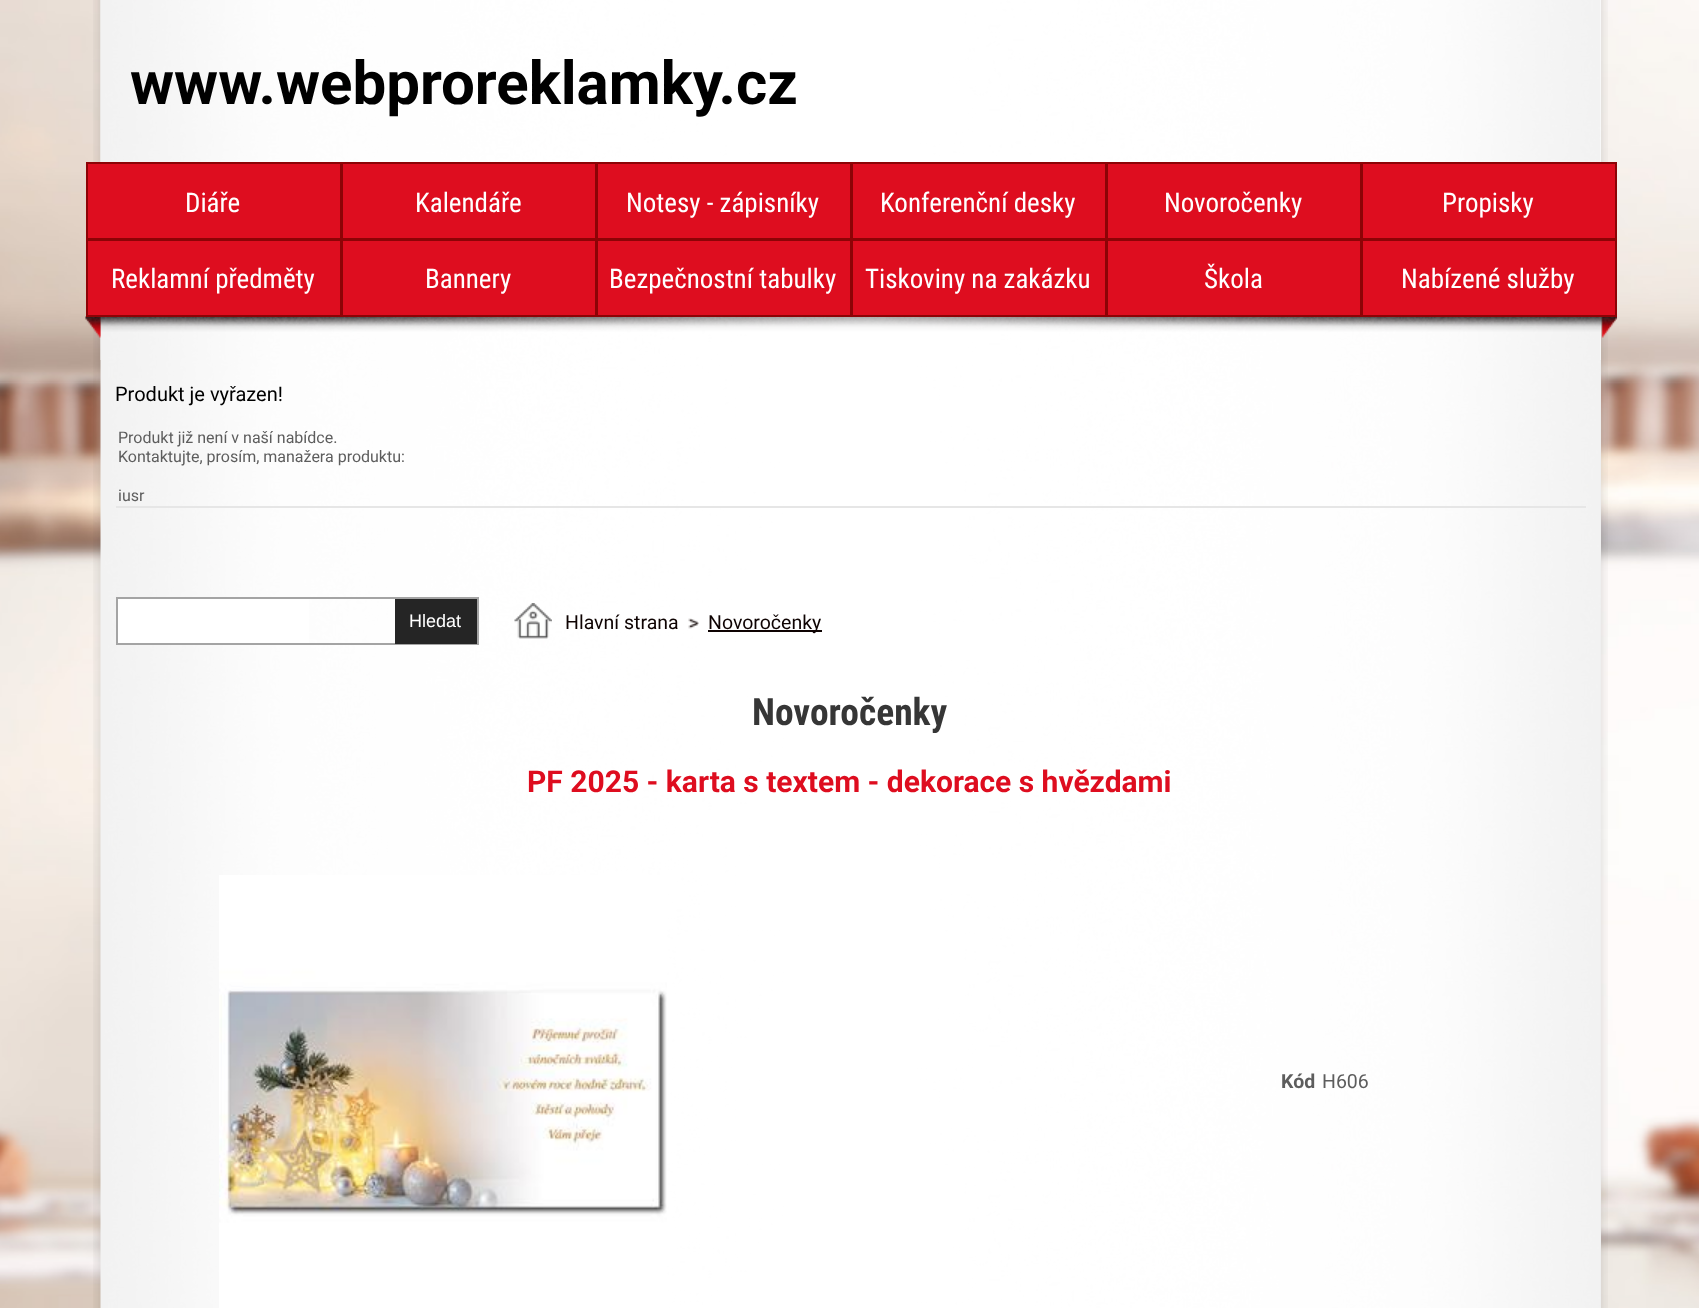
(async () => {
const canvas = document.querySelector("canvas")
canvas.width = 1699
canvas.height = 1308
const c = canvas.getContext("2d")
c.miterLimit = 4
c.fontKerning = "normal"
function T(s,x,y){c.fillText(s,x,y)}
function R(x,y,w,h){c.fillRect(x,y,w,h)}
async function I(src,x,y,w,h){const img=new Image();img.src=src;await img.decode();c.drawImage(img,x,y,w,h)}
c.fillStyle="#fff"
R(0,0,1699,1308)
await I("1.png",0,0,1699,1308)
R(1600,360,1,948)
await I("2.png",100,0,1501,1308)
await I("3.png",93,0,8,1308)
await I("6.png",1600,0,8,1308)
R(1600,0,1,360)
await I("4.png",100,0,1501,360)
c.font="bold 60px Roboto"
c.fillStyle="#000"
T("www.webproreklamky.cz",130,104)
await I("5.png",85,316,1532,22)
c.fillStyle="#de0d1f"
c.beginPath()
c.rect(87,163,254,76)
c.fill()
c.strokeStyle="#8d0306"
c.lineWidth=2
c.stroke()
c.font="27px Roboto Condensed"
c.fillStyle="#fff"
T("Diáře",185,212)
c.fillStyle="#de0d1f"
c.beginPath()
c.rect(342,163,254,76)
c.fill()
c.stroke()
c.fillStyle="#fff"
T("Kalendáře",415,212)
c.fillStyle="#de0d1f"
c.beginPath()
c.rect(597,163,254,76)
c.fill()
c.stroke()
c.fillStyle="#fff"
T("Notesy - zápisníky",626,212)
c.fillStyle="#de0d1f"
c.beginPath()
c.rect(852,163,254,76)
c.fill()
c.stroke()
c.fillStyle="#fff"
T("Konferenční desky",880,212)
c.fillStyle="#de0d1f"
c.beginPath()
c.rect(1107,163,254,76)
c.fill()
c.stroke()
c.fillStyle="#fff"
T("Novoročenky",1164,212)
c.fillStyle="#de0d1f"
c.beginPath()
c.rect(1362,163,254,76)
c.fill()
c.stroke()
c.fillStyle="#fff"
T("Propisky",1442,212)
c.fillStyle="#de0d1f"
c.beginPath()
c.rect(87,240,254,76)
c.fill()
c.stroke()
c.fillStyle="#fff"
T("Reklamní předměty",111,288)
c.fillStyle="#de0d1f"
c.beginPath()
c.rect(342,240,254,76)
c.fill()
c.stroke()
c.fillStyle="#fff"
T("Bannery",425,288)
c.fillStyle="#de0d1f"
c.beginPath()
c.rect(597,240,254,76)
c.fill()
c.stroke()
c.fillStyle="#fff"
T("Bezpečnostní tabulky",609,288)
c.fillStyle="#de0d1f"
c.beginPath()
c.rect(852,240,254,76)
c.fill()
c.stroke()
c.fillStyle="#fff"
T("Tiskoviny na zakázku",865,288)
c.fillStyle="#de0d1f"
c.beginPath()
c.rect(1107,240,254,76)
c.fill()
c.stroke()
c.fillStyle="#fff"
T("Škola",1204,288)
c.fillStyle="#de0d1f"
c.beginPath()
c.rect(1362,240,254,76)
c.fill()
c.stroke()
c.fillStyle="#fff"
T("Nabízené služby",1401,288)
c.font="20px Roboto"
c.fillStyle="#000"
T("Produkt je vyřazen!",115,401)
c.fillStyle="#e6e6e6"
R(116,506,1470,2)
c.font="16px Roboto"
c.fillStyle="#5d5d5d"
T("Produkt již není v naší nabídce.",118,443)
T("Kontaktujte, prosím, manažera produktu:",118,462)
T("iusr",118,501)
c.fillStyle="#fff"
R(118,599,191,44)
c.strokeStyle="#a4a4a4"
c.strokeRect(117,598,361,46)
c.fillStyle="#252525"
R(395,599,82,45)
c.font="18px Liberation Sans"
c.fillStyle="#fff"
T("Hledat",409,627)
await I("7.png",514,603,38,36)
c.font="19.5px Roboto"
c.fillStyle="#0e0302"
T("Hlavní strana",565,629)
await I("8.png",688,618,11,11)
R(708,630,114,2)
T("Novoročenky",708,629)
c.font="bold 37.5px Roboto Condensed"
c.fillStyle="#363636"
T("Novoročenky",752,725)
c.font="bold 30px Roboto"
c.fillStyle="#de0d1f"
T("PF 2025 - karta s textem - dekorace s hvězdami",527,792)
await I("9.png",219,875,448,433)
c.font="bold 19.5px Roboto"
c.fillStyle="#5d5d5d"
T("Kód",1281,1088)
c.font="19.5px Roboto"
T("H606",1322,1088)
})()
